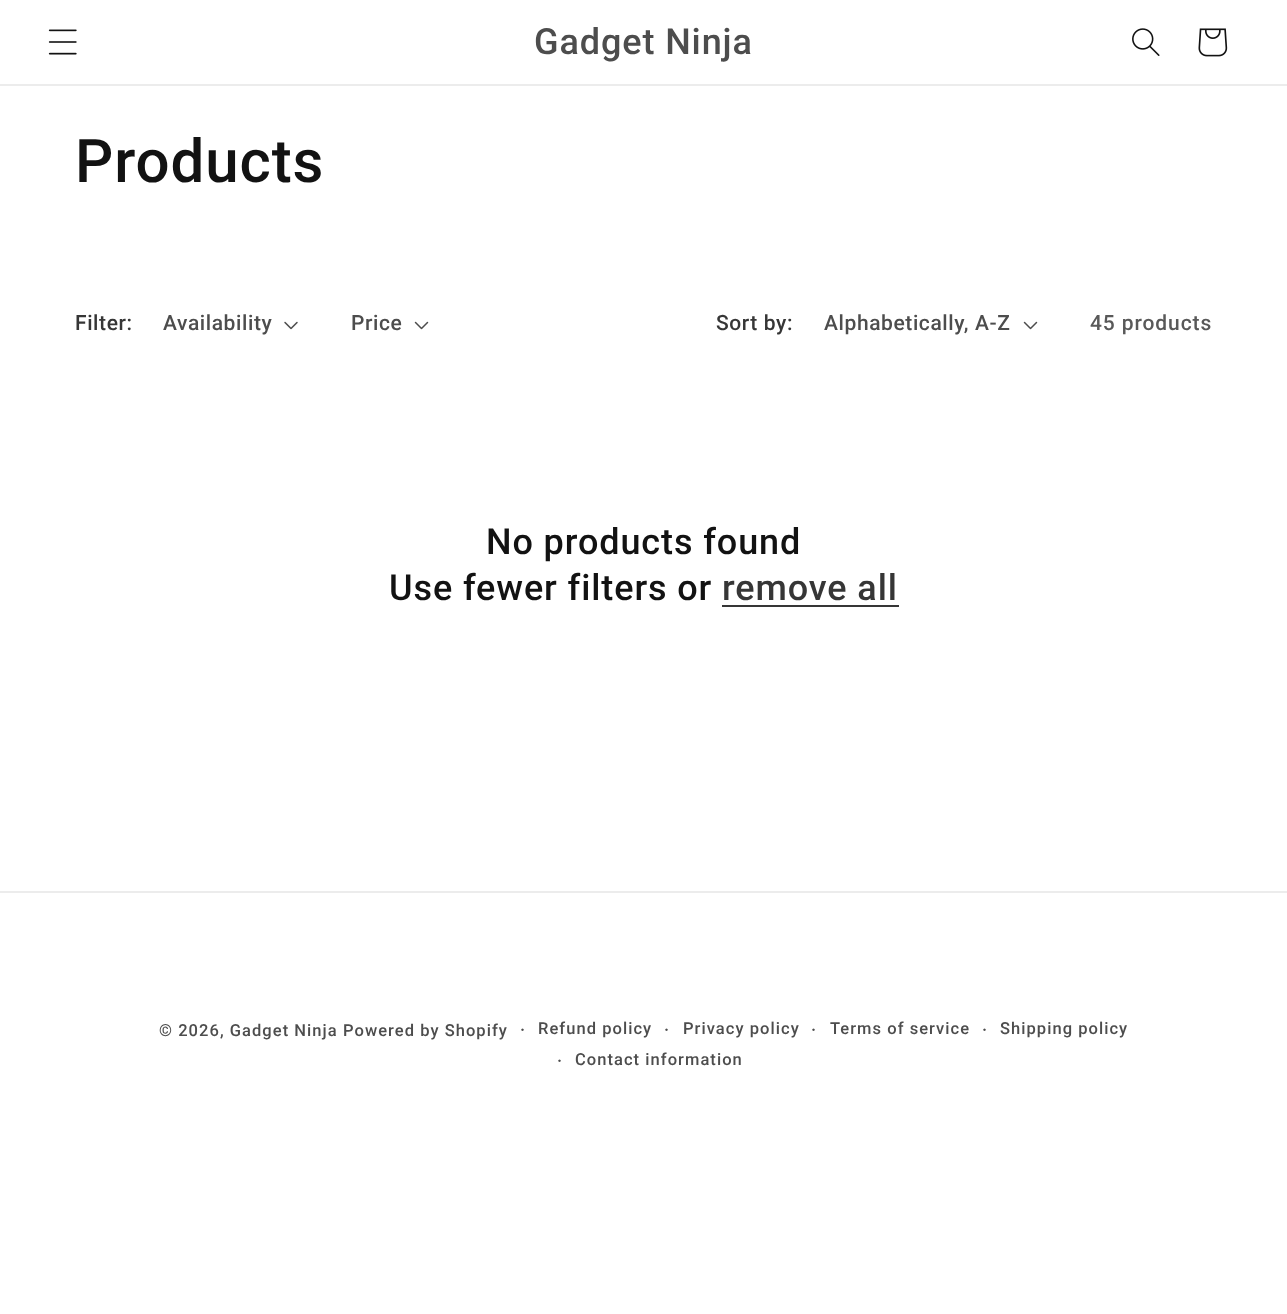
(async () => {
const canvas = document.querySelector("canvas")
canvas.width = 1287
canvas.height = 1314
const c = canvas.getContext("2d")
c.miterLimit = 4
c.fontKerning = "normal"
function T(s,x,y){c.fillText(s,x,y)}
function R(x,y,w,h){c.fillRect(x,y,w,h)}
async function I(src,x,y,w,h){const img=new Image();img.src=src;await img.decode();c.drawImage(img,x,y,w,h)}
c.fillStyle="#fff"
R(0,0,1287,1314)
c.fillStyle="#ececec"
R(0,84,1287,2)
await I("1.png",48,29,29,26)
c.letterSpacing="0.9px"
c.font="500 36px Roboto"
c.fillStyle="#4d4d4d"
T("Gadget Ninja",534,54)
await I("2.png",1132,28,28,28)
await I("3.png",1198,28,30,29)
c.font="500 60px Roboto"
c.fillStyle="#121212"
T("Products",75,182)
c.letterSpacing="0.6px"
c.font="500 21px Roboto"
c.fillStyle="#363636"
T("Filter:",75,330)
c.fillStyle="#4d4d4d"
T("Availability",163,330)
await I("4.png",284,321,14,9)
T("Price",351,330)
await I("5.png",414,321,15,9)
c.fillStyle="#363636"
T("Sort by:",716,330)
c.fillStyle="#4d4d4d"
T("Alphabetically, A-Z",824,330)
await I("5.png",1023,321,15,9)
c.letterSpacing="0.9px"
c.fillStyle="#595959"
T("45 products",1090,330)
c.font="500 36px Roboto"
c.fillStyle="#121212"
T("No products found",486,554)
T("Use fewer filters or",389,600)
c.fillStyle="#363636"
T("remove all",722,600)
R(722,605,177,2)
c.fillStyle="#ececec"
R(0,891,1287,2)
c.letterSpacing="1.05px"
c.font="500 16.5px Roboto"
c.fillStyle="#4d4d4d"
T("© 2026, Gadget Ninja",159,1036)
T("Powered by Shopify",343,1036)
c.font="500 18px Roboto"
T("·",520,1036)
c.font="500 16.5px Roboto"
T("Refund policy",538,1034)
c.font="500 18px Roboto"
T("·",664,1036)
c.font="500 16.5px Roboto"
T("Privacy policy",683,1034)
c.font="500 18px Roboto"
T("·",811,1036)
c.font="500 16.5px Roboto"
T("Terms of service",830,1034)
c.font="500 18px Roboto"
T("·",982,1036)
c.font="500 16.5px Roboto"
T("Shipping policy",1000,1034)
c.font="500 18px Roboto"
T("·",557,1067)
c.font="500 16.5px Roboto"
T("Contact information",575,1065)
})()
